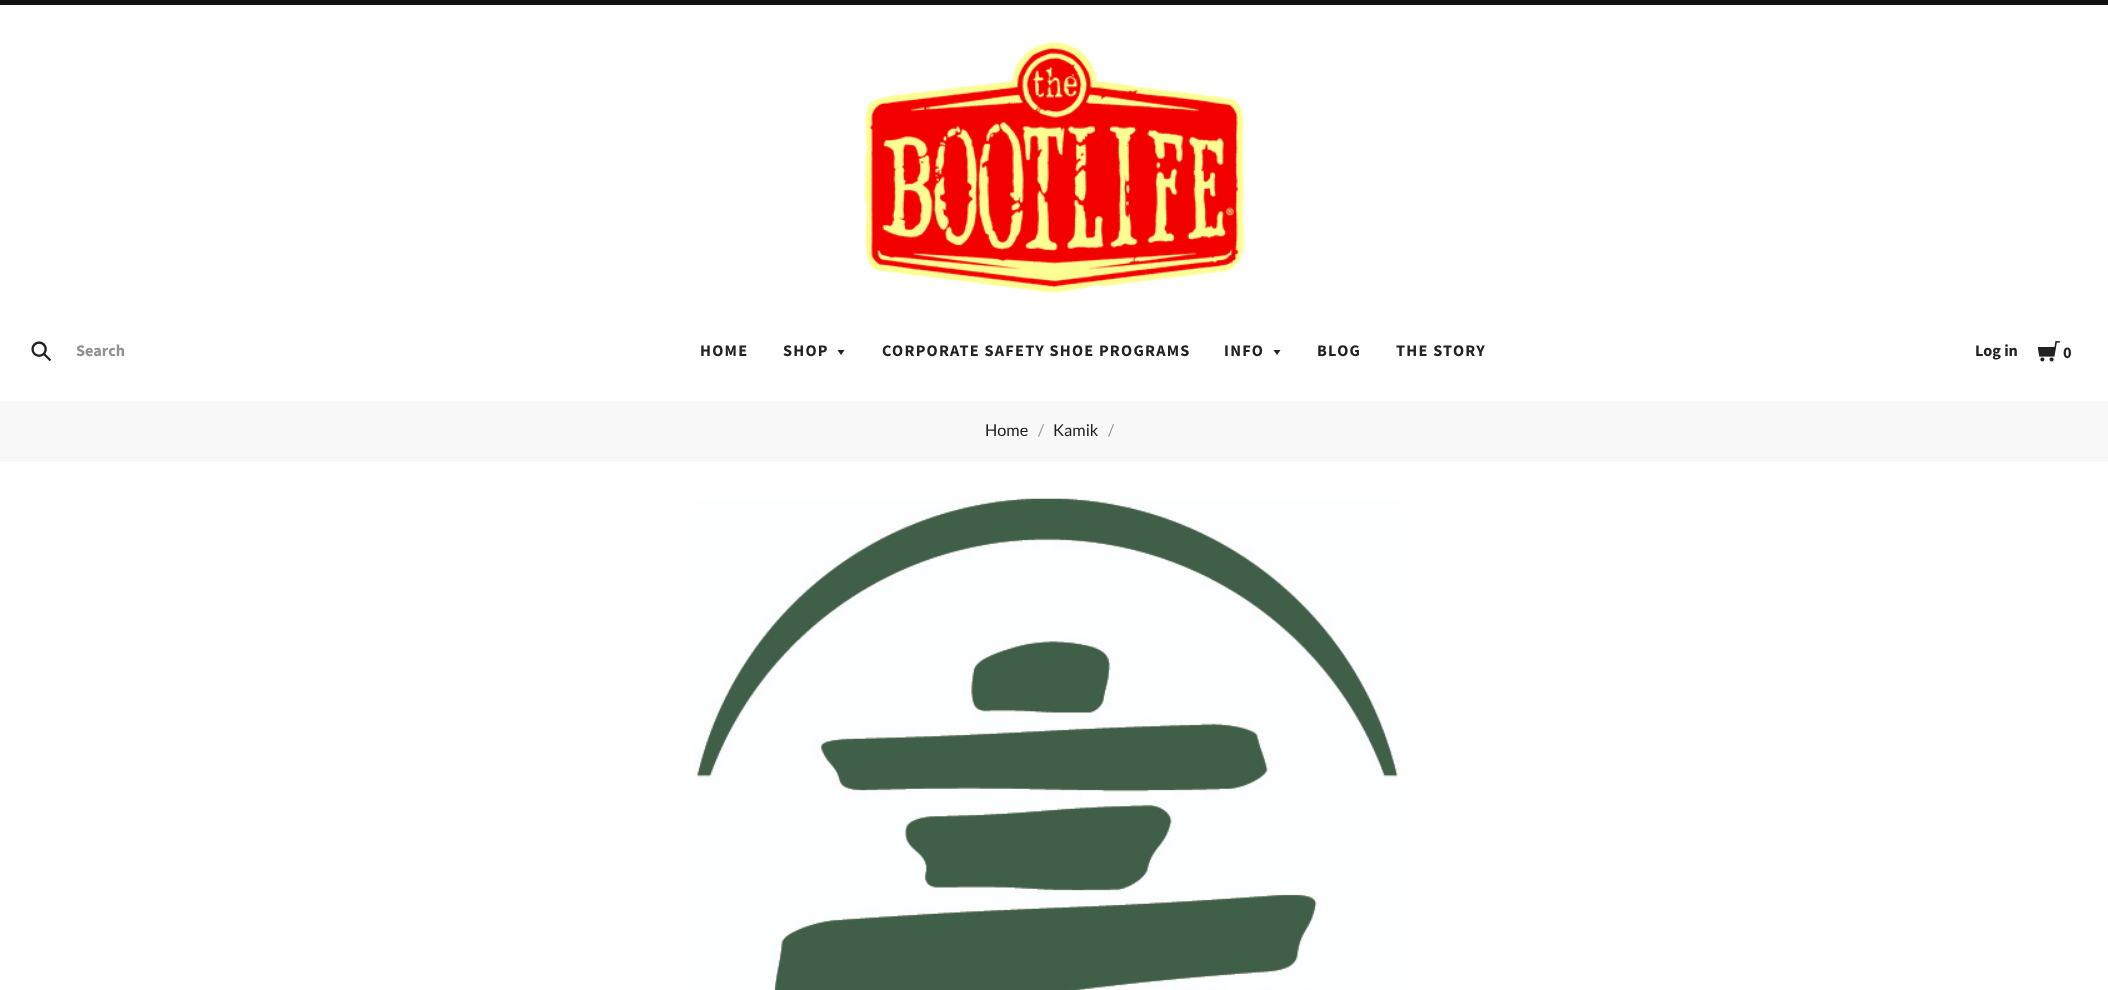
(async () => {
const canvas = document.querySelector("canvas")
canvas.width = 2108
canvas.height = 990
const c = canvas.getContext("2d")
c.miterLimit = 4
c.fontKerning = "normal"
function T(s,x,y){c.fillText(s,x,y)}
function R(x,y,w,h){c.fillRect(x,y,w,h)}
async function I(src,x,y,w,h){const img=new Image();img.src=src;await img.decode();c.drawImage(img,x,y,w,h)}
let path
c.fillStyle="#fff"
R(0,0,2108,990)
c.fillStyle="#111"
R(0,0,2108,5)
await I("1.png",865,42,379,251)
await I("2.png",31,341,20,20)
c.font="bold 16.25px Source Sans Pro"
c.fillStyle="#919191"
T("Search",76,356)
c.letterSpacing="1.25px"
c.fillStyle="#222"
T("HOME",700,356)
T("SHOP",783,356)
path = new Path2D("M837.5 350l3.5 5l3.5-5z")
c.fill(path)
T("CORPORATE SAFETY SHOE PROGRAMS",882,356)
T("INFO",1224,356)
path = new Path2D("M1273.5 350l3.5 5l3.5-5z")
c.fill(path)
T("BLOG",1317,356)
T("THE STORY",1396,356)
c.letterSpacing="0px"
T("Log in",1975,356)
await I("3.png",2038,341,22,21)
T("0",2063,358)
c.fillStyle="#f8f8f8"
R(0,401,2108,59)
c.fillStyle="#f2f2f2"
R(0,460,2108,1)
c.font="16.25px Lato"
c.fillStyle="#222"
T("Home",985,436)
c.fillStyle="#999"
T("/",1038,436)
c.fillStyle="#222"
T("Kamik",1053,436)
c.fillStyle="#999"
T("/",1108,436)
await I("4.png",694,498,706,492)
})()
